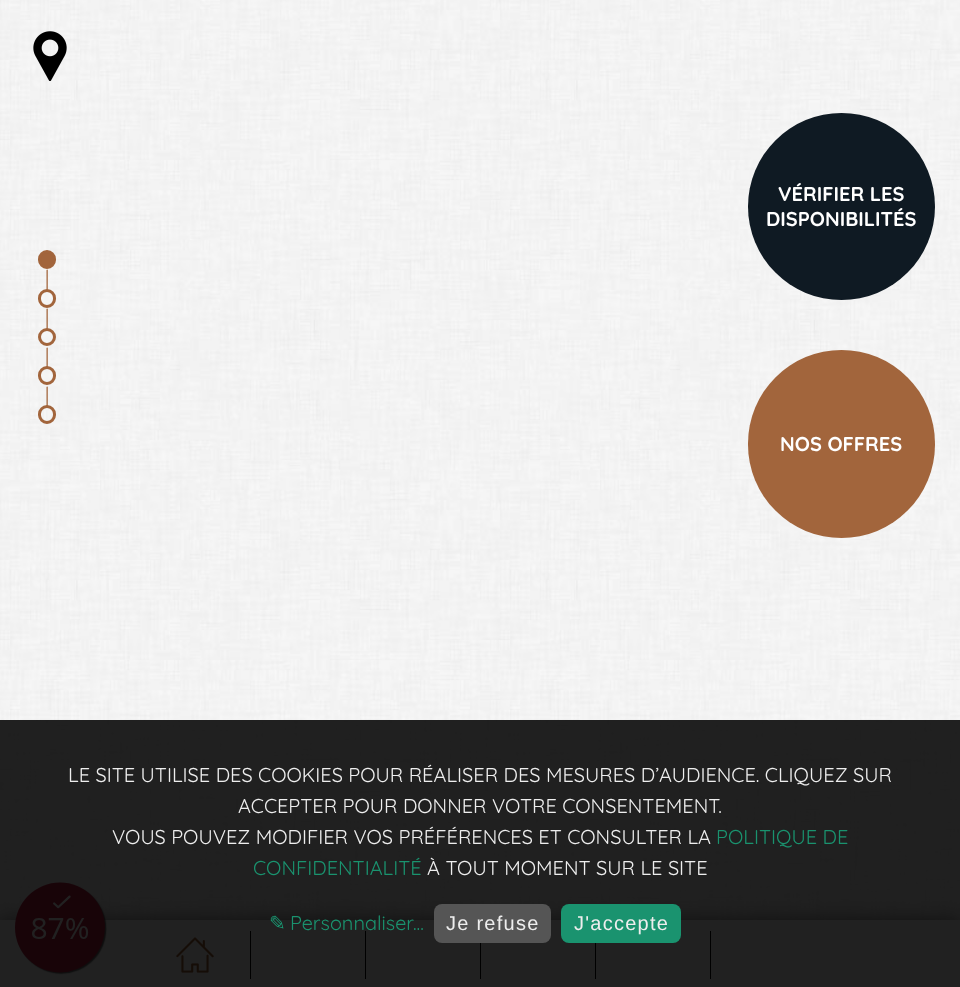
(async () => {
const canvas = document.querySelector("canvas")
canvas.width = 960
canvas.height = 987
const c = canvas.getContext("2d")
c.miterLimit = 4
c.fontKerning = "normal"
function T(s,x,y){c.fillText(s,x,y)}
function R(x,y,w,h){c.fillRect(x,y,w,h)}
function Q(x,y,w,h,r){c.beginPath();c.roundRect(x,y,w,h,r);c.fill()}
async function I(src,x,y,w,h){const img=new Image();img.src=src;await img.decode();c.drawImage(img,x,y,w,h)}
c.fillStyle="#fff"
R(0,0,960,987)
await I("1.png",0,0,960,920)
c.fillStyle="#0f1a23"
c.beginPath()
c.arc(841.5,206.5,93.5,0,7)
c.fill()
c.font="bold 20px Quicksand"
c.fillStyle="#fff"
T("VÉRIFIER LES",778,201)
T("DISPONIBILITÉS",766,226)
await I("2.png",33,31,34,50)
c.fillStyle="#a2653c"
c.beginPath()
c.roundRect(39.5,251.5,15,16,7.5)
c.fill()
c.strokeStyle="#a2653c"
c.lineWidth=3
c.stroke()
c.font="21px Quicksand"
T("|",45,286)
c.beginPath()
c.roundRect(39.5,290.5,15,16,7.5)
c.stroke()
T("|",45,325)
c.beginPath()
c.arc(47,337,7.5,0,7)
c.stroke()
T("|",45,364)
c.beginPath()
c.roundRect(39.5,367.5,15,16,7.5)
c.stroke()
T("|",45,403)
c.beginPath()
c.roundRect(39.5,406.5,15,16,7.5)
c.stroke()
c.fillStyle="#808080"
c.filter="blur(9.5px)"
c.beginPath()
c.rect(0,920,960,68)
c.fill()
c.filter="none"
c.fillStyle="#fff"
R(0,920,960,67)
await I("3.png",176,937,38,36)
c.fillStyle="#000"
R(250,931,1,48)
R(365,931,1,48)
R(480,943,1,36)
R(595,943,1,36)
R(710,931,1,48)
c.fillStyle="#a2653c"
Q(748,350,187,188,93.5)
c.font="bold 20px Quicksand"
c.fillStyle="#fff"
T("NOS OFFRES",780,451)
await I("4.png",15,882,93,93)
c.fillStyle="#000000de"
R(0,720,960,267)
c.font="20px Quicksand"
c.fillStyle="#eee"
T("LE SITE UTILISE DES COOKIES POUR RÉALISER DES MESURES D’AUDIENCE. CLIQUEZ SUR",68,782)
T("ACCEPTER POUR DONNER VOTRE CONSENTEMENT.",238,813)
T("VOUS POUVEZ MODIFIER VOS PRÉFÉRENCES ET CONSULTER LA",112,844)
c.fillStyle="#1a936f"
T("POLITIQUE DE",716,844)
T("CONFIDENTIALITÉ",253,875)
c.fillStyle="#eee"
T("À TOUT MOMENT SUR LE SITE",427,875)
c.font="20px DejaVu Sans"
c.fillStyle="#1a936f"
T("✎",269,930)
c.font="20px Quicksand"
T("Personnaliser",290,930)
T("...",413,930)
c.fillStyle="#555"
Q(434,904,117,39,8)
c.letterSpacing="1.25px"
c.font="20px Liberation Sans"
c.fillStyle="#eee"
T("Je refuse",446,930)
c.fillStyle="#1a936f"
Q(561,904,120,39,8)
c.fillStyle="#eee"
T("J'accepte",574,930)
})()
